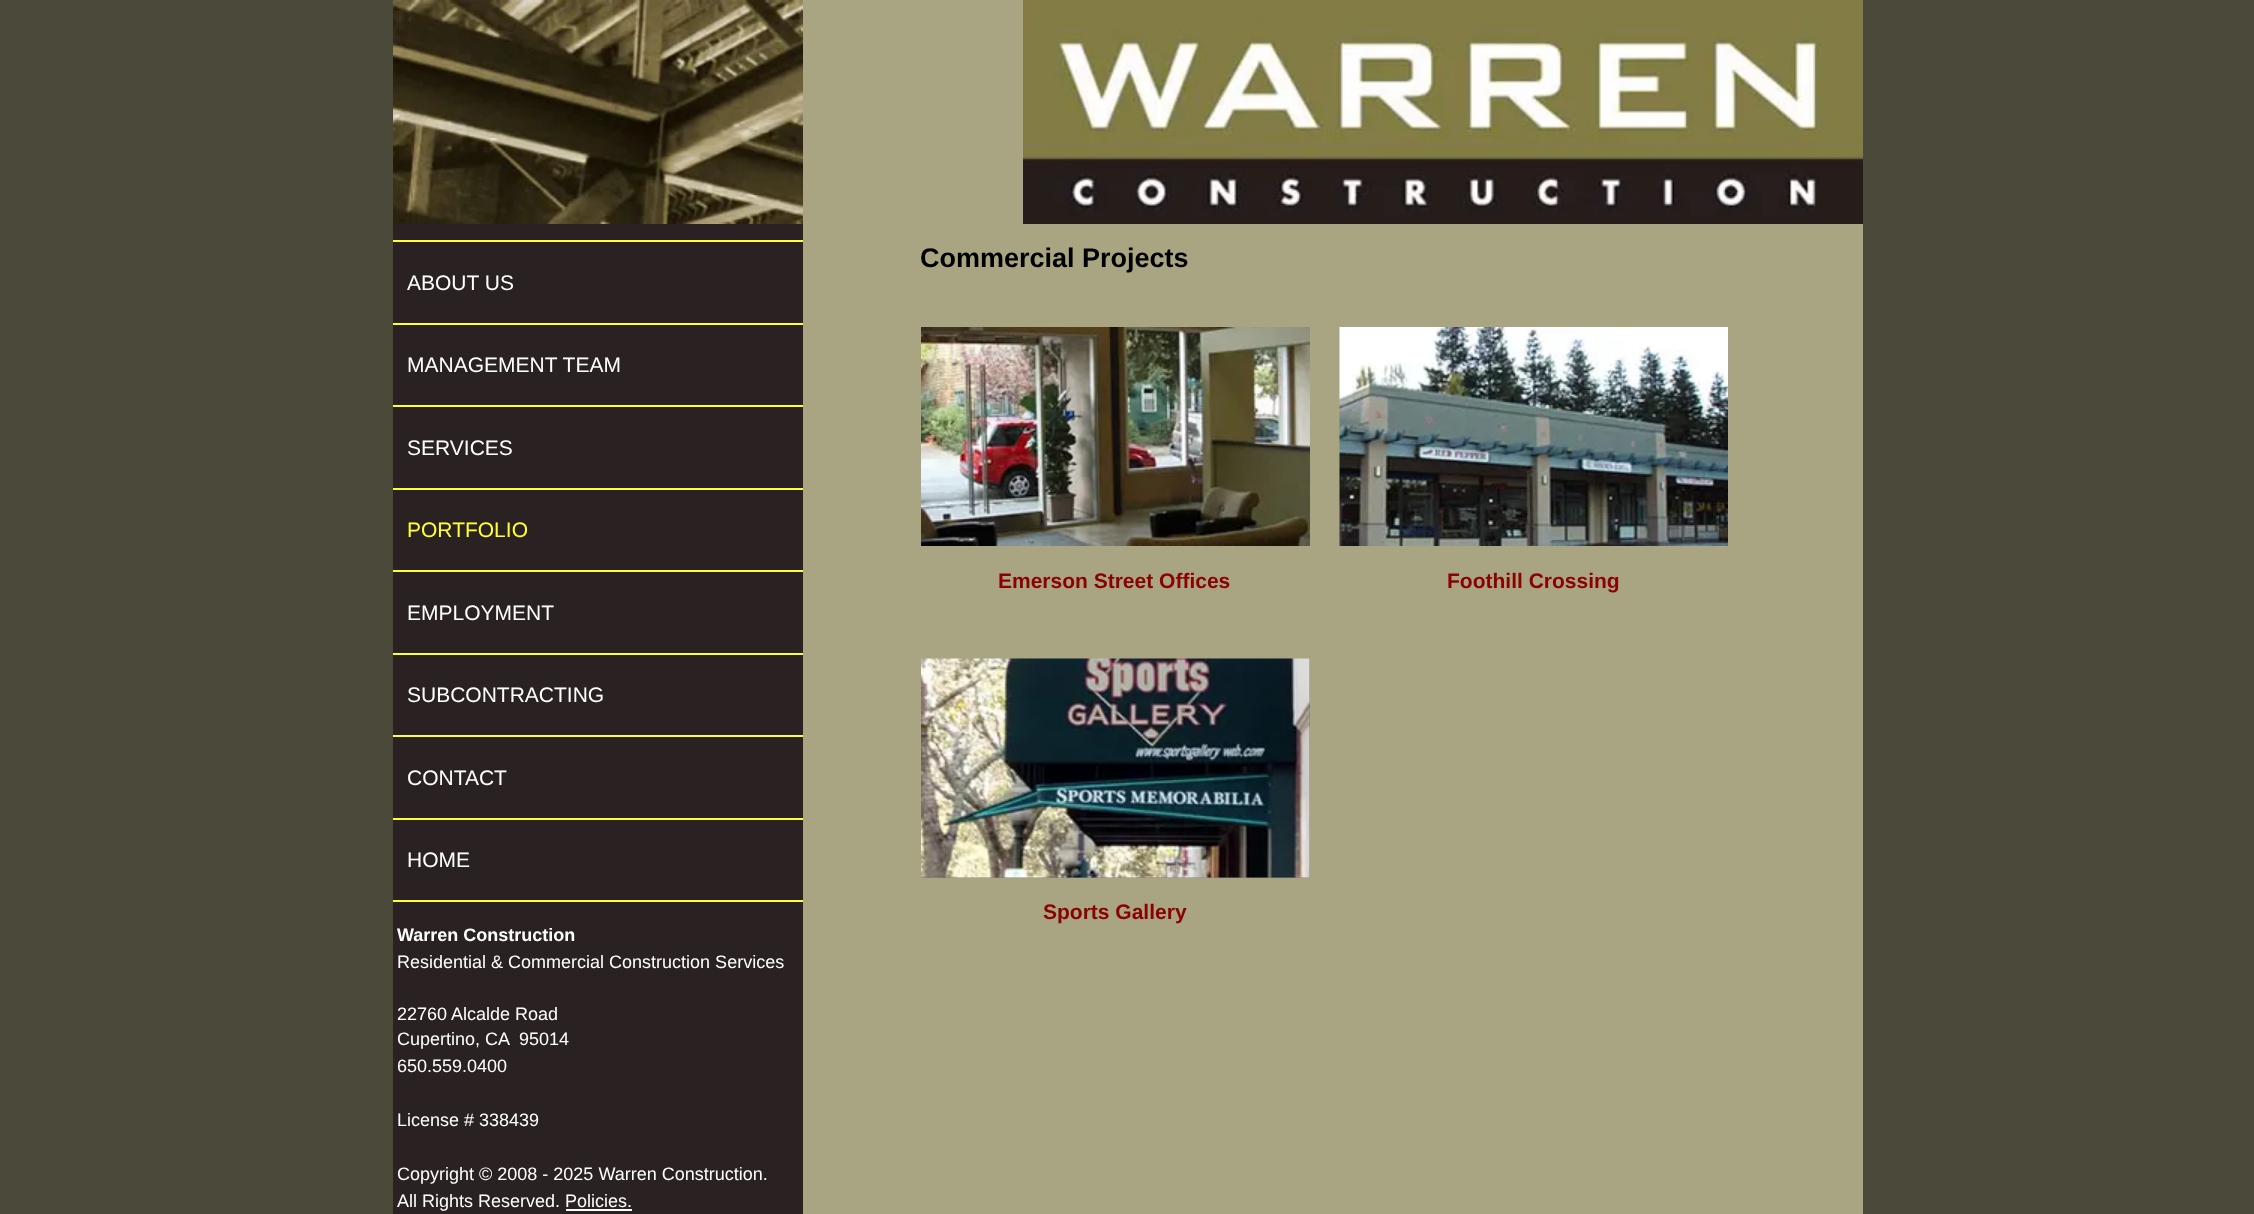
(async () => {
const canvas = document.querySelector("canvas")
canvas.width = 2254
canvas.height = 1214
const c = canvas.getContext("2d")
c.miterLimit = 4
c.fontKerning = "normal"
function T(s,x,y){c.fillText(s,x,y)}
function R(x,y,w,h){c.fillRect(x,y,w,h)}
async function I(src,x,y,w,h){const img=new Image();img.src=src;await img.decode();c.drawImage(img,x,y,w,h)}
c.fillStyle="#4b4939"
R(0,0,2254,1214)
await I("1.png",393,0,410,224)
await I("2.png",1023,0,840,224)
c.fillStyle="#a9a481"
R(803,0,220,224)
c.fillStyle="#2a2222"
R(393,224,410,990)
c.fillStyle="#ffff36"
R(393,240,410,2)
R(393,900,410,2)
R(393,323,410,2)
c.font="21px Liberation Sans"
c.fillStyle="#fff"
T("ABOUT US",407,290)
c.fillStyle="#ffff36"
R(393,405,410,2)
c.fillStyle="#fff"
T("MANAGEMENT TEAM",407,372)
c.fillStyle="#ffff36"
R(393,488,410,2)
c.fillStyle="#fff"
T("SERVICES",407,455)
c.fillStyle="#ffff36"
R(393,570,410,2)
T("PORTFOLIO",407,537)
R(393,653,410,2)
c.fillStyle="#fff"
T("EMPLOYMENT",407,620)
c.fillStyle="#ffff36"
R(393,735,410,2)
c.fillStyle="#fff"
T("SUBCONTRACTING",407,702)
c.fillStyle="#ffff36"
R(393,818,410,2)
c.fillStyle="#fff"
T("CONTACT",407,785)
T("HOME",407,867)
c.font="bold 18px Liberation Sans"
T("Warren Construction",397,941)
c.font="18px Liberation Sans"
T("Residential & Commercial Construction Services",397,968)
T("22760 Alcalde Road",397,1020)
T("Cupertino, CA  95014",397,1045)
T("650.559.0400",397,1072)
T("License # 338439",397,1126)
T("Copyright © 2008 - 2025 Warren Construction.",397,1180)
T("All Rights Reserved. Policies.",397,1207)
R(566,1209,66,2)
c.fillStyle="#a9a481"
R(803,224,1060,990)
c.font="bold 27px Liberation Sans"
c.fillStyle="#000"
T("Commercial Projects",920,267)
await I("3.png",921,327,389,219)
c.font="bold 21px Liberation Sans"
c.fillStyle="#8b0000"
T("Emerson Street Offices",998,588)
await I("4.png",1339,327,389,219)
T("Foothill Crossing",1447,588)
c.fillStyle="#808080"
R(921,659,389,219)
await I("5.png",921,658,389,220)
c.fillStyle="#8b0000"
T("Sports Gallery",1043,919)
})()
